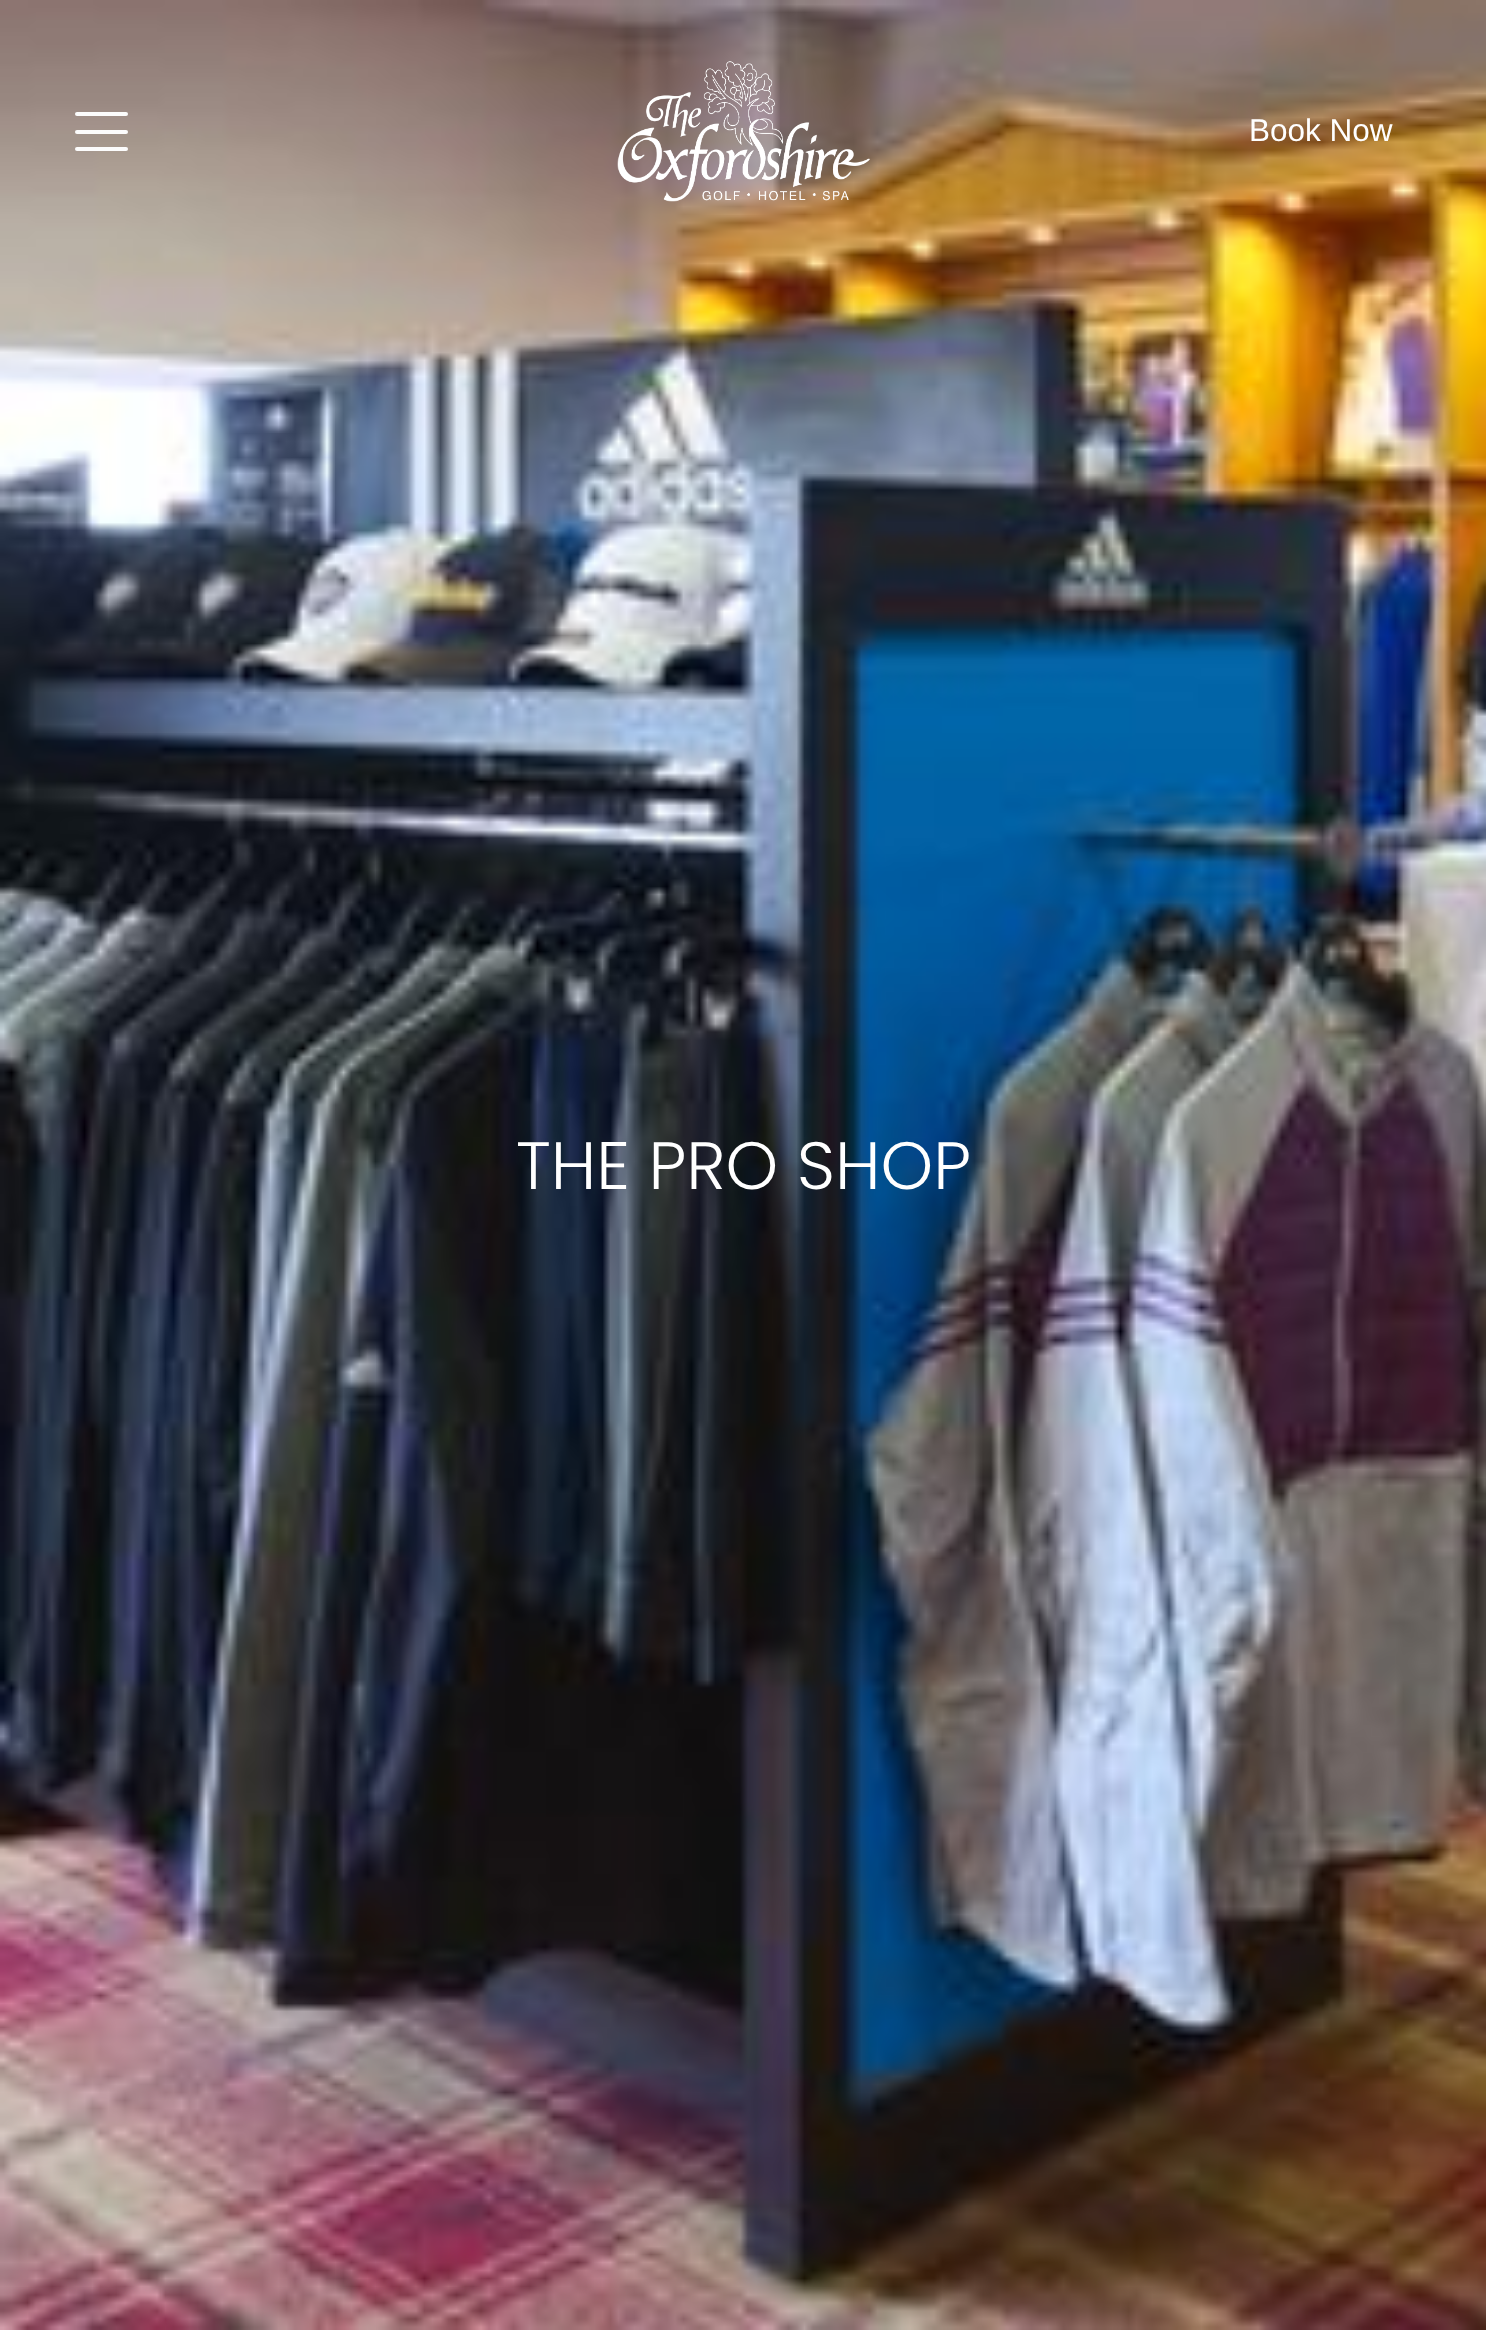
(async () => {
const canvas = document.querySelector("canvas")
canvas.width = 1486
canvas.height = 2330
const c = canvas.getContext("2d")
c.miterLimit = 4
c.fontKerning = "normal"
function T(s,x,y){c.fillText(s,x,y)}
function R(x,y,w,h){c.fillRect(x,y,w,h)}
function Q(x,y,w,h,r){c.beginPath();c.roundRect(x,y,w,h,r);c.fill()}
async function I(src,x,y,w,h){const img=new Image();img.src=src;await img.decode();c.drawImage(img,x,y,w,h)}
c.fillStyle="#fff"
R(0,0,1486,2330)
await I("2.png",0,0,1486,2330)
c.fillStyle="#fcfcfc"
Q(75,112,53,4,2)
Q(75,130,53,4,2)
Q(75,147,53,4,2)
await I("1.png",617,61,253,141)
c.font="31.5px Liberation Sans"
c.fillStyle="#fff"
T("Book Now",1249,141)
c.font="300 67px Poppins"
T("THE PRO SHOP",516,1189)
})()
